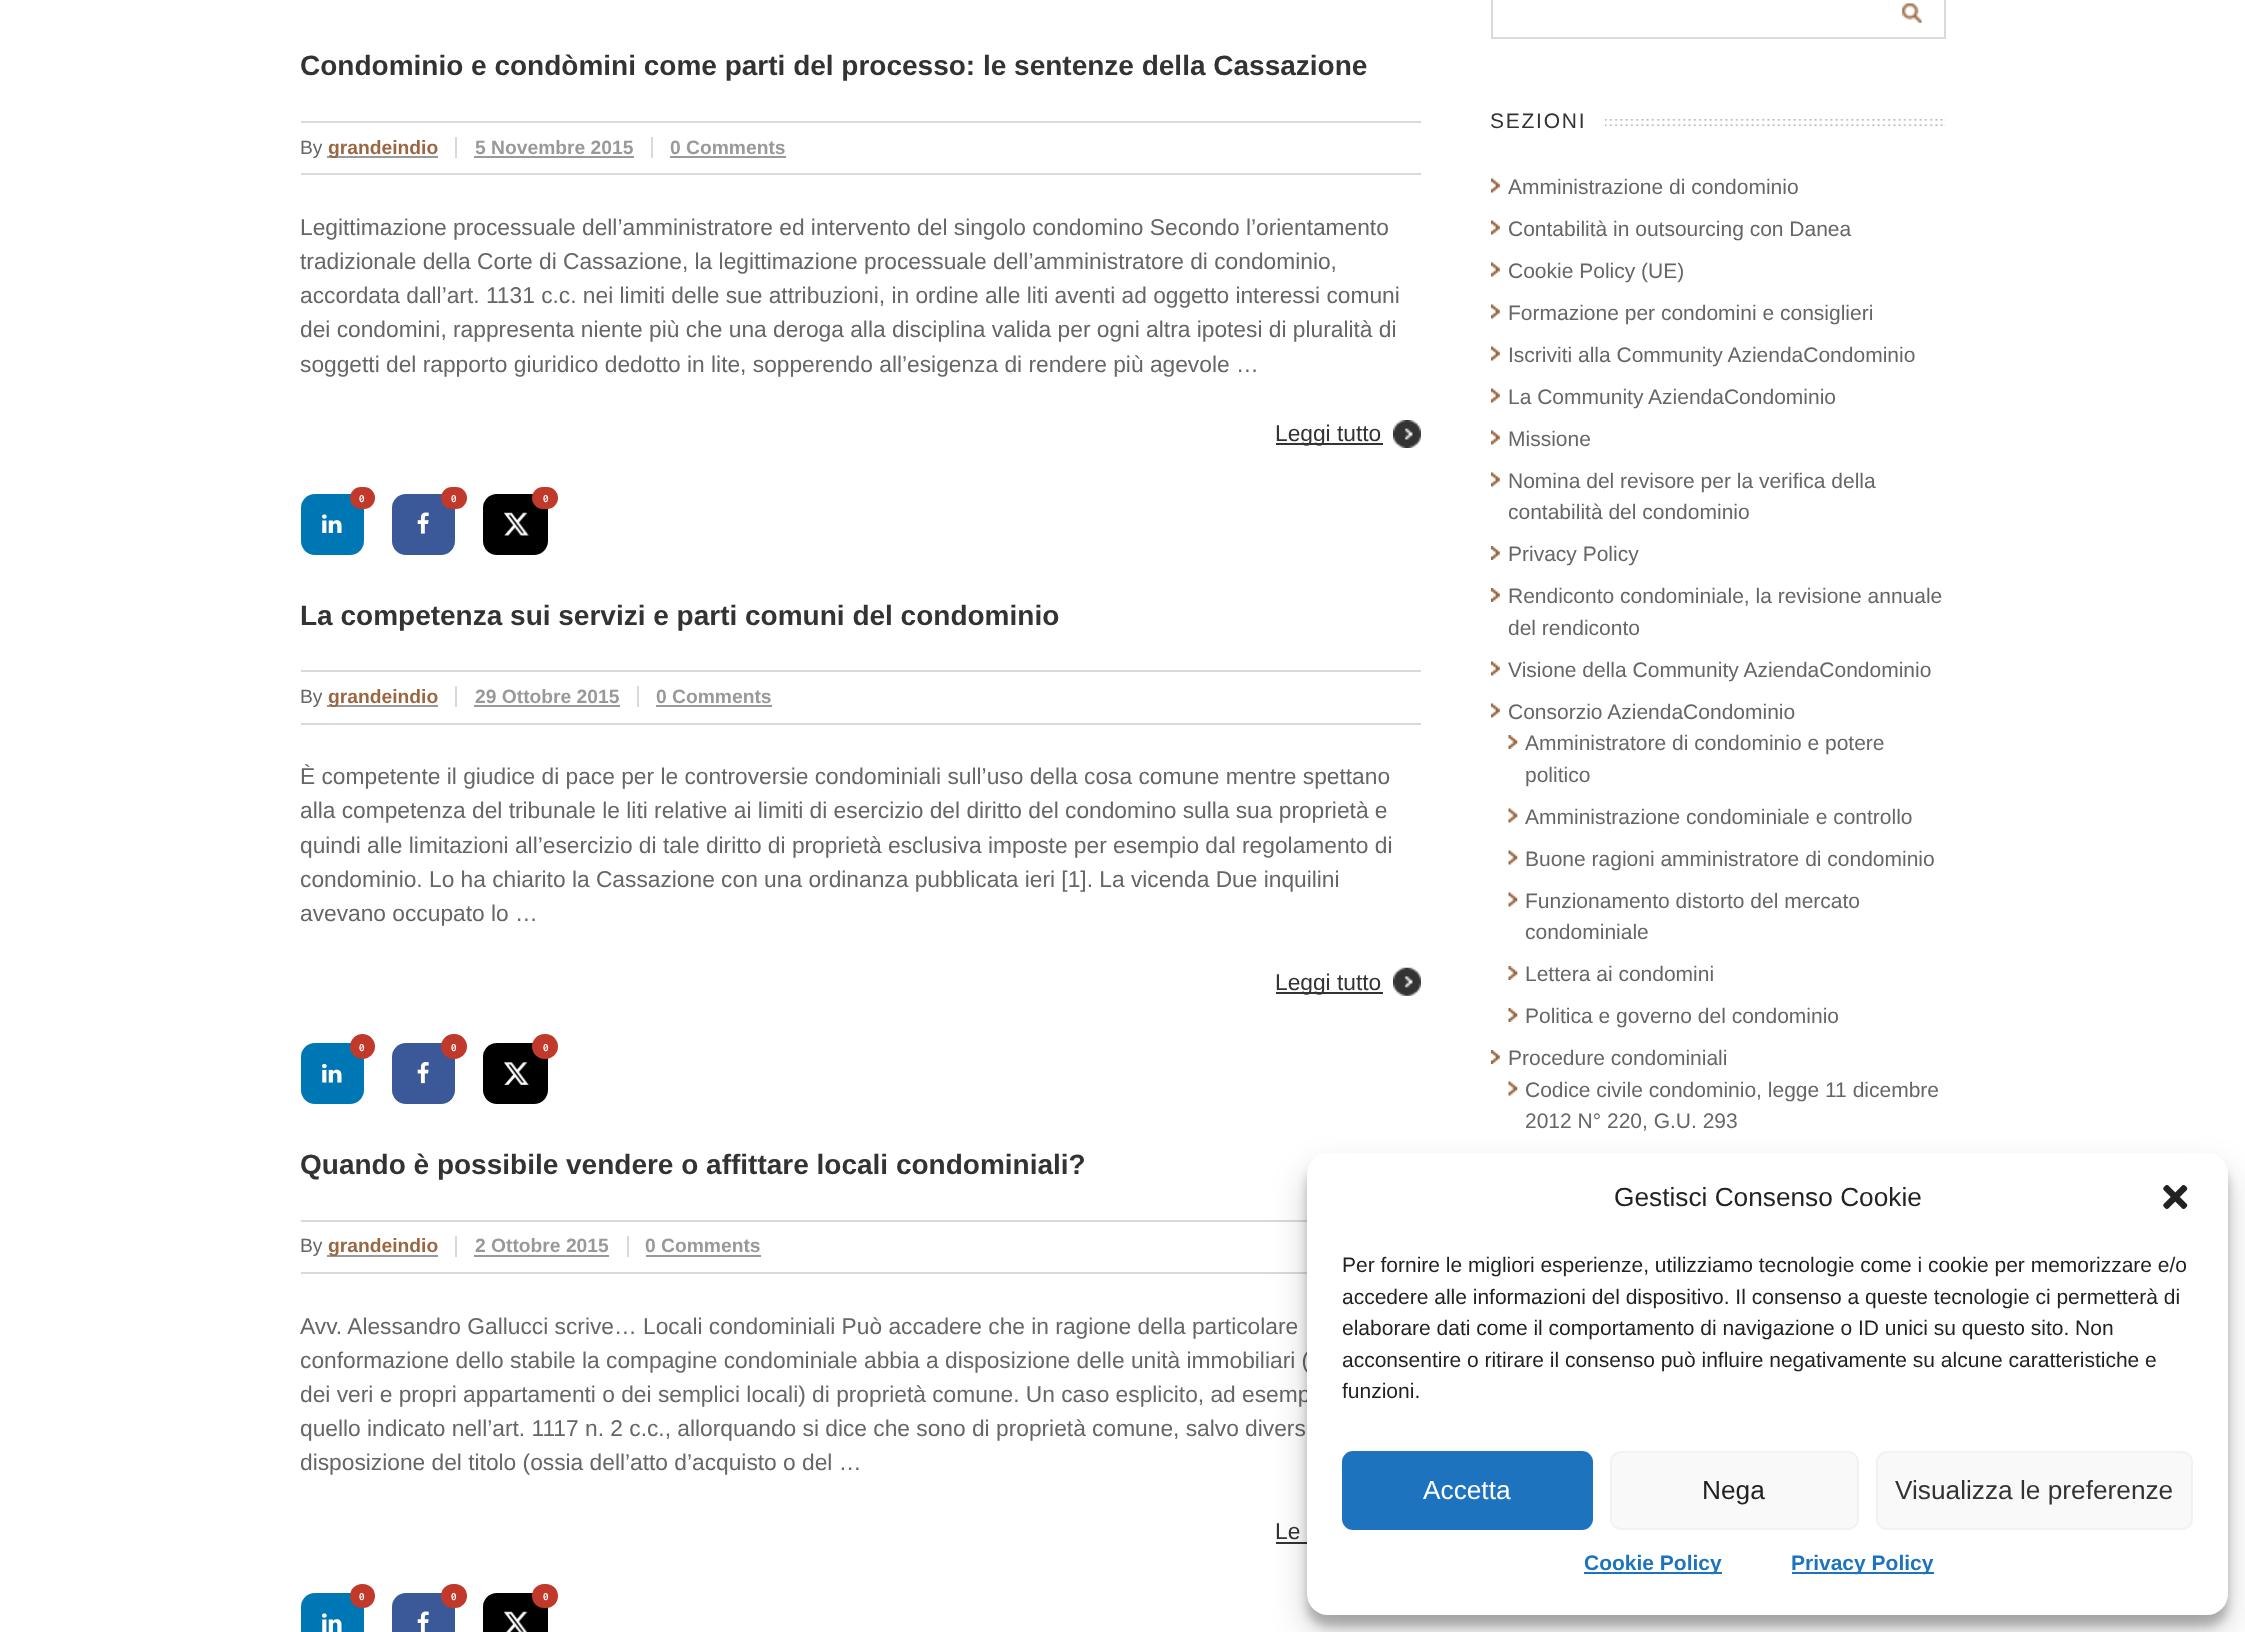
(async () => {
const canvas = document.querySelector("canvas")
canvas.width = 2245
canvas.height = 1632
const c = canvas.getContext("2d")
c.miterLimit = 4
c.fontKerning = "normal"
function T(s,x,y){c.fillText(s,x,y)}
function R(x,y,w,h){c.fillRect(x,y,w,h)}
function Q(x,y,w,h,r){c.beginPath();c.roundRect(x,y,w,h,r);c.fill()}
async function I(src,x,y,w,h){const img=new Image();img.src=src;await img.decode();c.drawImage(img,x,y,w,h)}
c.fillStyle="#fff"
R(0,0,2245,1632)
c.font="bold 28px Liberation Sans"
c.fillStyle="#333"
T("Condominio e condòmini come parti del processo: le sentenze della Cassazione",300,75)
c.fillStyle="#d9d9d9"
R(301,121,1120,2)
R(301,173,1120,2)
c.font="19.25px Liberation Sans"
c.fillStyle="#666"
T("By",300,154)
c.fillStyle="#999"
R(327,156,111,2)
c.font="bold 19.25px Liberation Sans"
c.fillStyle="#9a6742"
T("grandeindio",328,154)
c.fillStyle="#d9d9d9"
R(455,137,2,21)
c.fillStyle="#999"
T("5 Novembre 2015",475,154)
c.fillStyle="#d9d9d9"
R(651,137,2,21)
c.fillStyle="#999"
R(474,156,160,2)
T("0 Comments",670,154)
R(670,156,116,2)
c.font="22.75px Liberation Sans"
c.fillStyle="#666"
T("Legittimazione processuale dell’amministratore ed intervento del singolo condomino Secondo l’orientamento",300,235)
T("tradizionale della Corte di Cassazione, la legittimazione processuale dell’amministratore di condominio,",300,269)
T("accordata dall’art. 1131 c.c. nei limiti delle sue attribuzioni, in ordine alle liti aventi ad oggetto interessi comuni",300,303)
T("dei condomini, rappresenta niente più che una deroga alla disciplina valida per ogni altra ipotesi di pluralità di",300,337)
T("soggetti del rapporto giuridico dedotto in lite, sopperendo all’esigenza di rendere più agevole …",300,372)
await I("1.png",1393,420,28,28)
c.fillStyle="#333"
R(1276,443,107,2)
T("Leggi tutto",1275,441)
c.fillStyle="#0077b5"
Q(301,494,63,61,14)
c.fillStyle="#c0392b"
Q(350,487,25,22,11)
c.font="bold 11px Inconsolata"
c.fillStyle="#fff"
T("0",359,502)
await I("2.png",322,514,20,19)
c.fillStyle="#3b5998"
Q(392,494,63,61,14)
c.fillStyle="#c0392b"
Q(441,487,26,22,11)
c.fillStyle="#fff"
T("0",451,502)
await I("3.png",417,512,12,22)
c.fillStyle="#000"
Q(483,494,65,61,14)
c.fillStyle="#c0392b"
Q(532,487,26,22,11)
c.fillStyle="#fff"
T("0",543,502)
await I("4.png",504,512,25,24)
c.font="bold 28px Liberation Sans"
c.fillStyle="#333"
T("La competenza sui servizi e parti comuni del condominio",300,625)
c.fillStyle="#d9d9d9"
R(301,670,1120,2)
R(301,723,1120,2)
c.font="19.25px Liberation Sans"
c.fillStyle="#666"
T("By",300,703)
c.fillStyle="#999"
R(327,705,111,2)
c.font="bold 19.25px Liberation Sans"
c.fillStyle="#9a6742"
T("grandeindio",328,703)
c.fillStyle="#d9d9d9"
R(455,686,2,21)
c.fillStyle="#999"
T("29 Ottobre 2015",475,703)
c.fillStyle="#d9d9d9"
R(637,686,2,21)
c.fillStyle="#999"
R(474,705,146,2)
T("0 Comments",656,703)
R(656,705,116,2)
c.font="22.75px Liberation Sans"
c.fillStyle="#666"
T("È competente il giudice di pace per le controversie condominiali sull’uso della cosa comune mentre spettano",300,784)
T("alla competenza del tribunale le liti relative ai limiti di esercizio del diritto del condomino sulla sua proprietà e",300,818)
T("quindi alle limitazioni all’esercizio di tale diritto di proprietà esclusiva imposte per esempio dal regolamento di",300,853)
T("condominio. Lo ha chiarito la Cassazione con una ordinanza pubblicata ieri [1]. La vicenda Due inquilini",300,887)
T("avevano occupato lo …",300,921)
await I("5.png",1393,967,28,29)
c.fillStyle="#333"
R(1276,992,107,2)
T("Leggi tutto",1275,990)
c.fillStyle="#0077b5"
Q(301,1043,63,61,14)
c.fillStyle="#c0392b"
c.beginPath()
c.arc(362.5,1046.5,12.5,0,7)
c.fill()
c.font="bold 11px Inconsolata"
c.fillStyle="#fff"
T("0",359,1051)
await I("6.png",322,1063,20,20)
c.fillStyle="#3b5998"
Q(392,1043,63,61,14)
c.fillStyle="#c0392b"
Q(441,1034,26,25,12.5)
c.fillStyle="#fff"
T("0",451,1051)
await I("7.png",417,1062,12,22)
c.fillStyle="#000"
Q(483,1043,65,61,14)
c.fillStyle="#c0392b"
Q(532,1034,26,25,12.5)
c.fillStyle="#fff"
T("0",543,1051)
await I("8.png",504,1062,25,23)
c.font="bold 28px Liberation Sans"
c.fillStyle="#333"
T("Quando è possibile vendere o affittare locali condominiali?",300,1174)
c.fillStyle="#d9d9d9"
R(301,1220,1006,2)
R(301,1272,1006,2)
c.font="19.25px Liberation Sans"
c.fillStyle="#666"
T("By",300,1252)
c.fillStyle="#999"
R(327,1255,111,2)
c.font="bold 19.25px Liberation Sans"
c.fillStyle="#9a6742"
T("grandeindio",328,1252)
c.fillStyle="#d9d9d9"
R(455,1236,2,21)
c.fillStyle="#999"
T("2 Ottobre 2015",475,1252)
c.fillStyle="#d9d9d9"
R(627,1236,2,21)
c.fillStyle="#999"
R(474,1255,135,2)
T("0 Comments",645,1252)
R(646,1255,115,2)
c.font="22.75px Liberation Sans"
c.fillStyle="#666"
T("Avv. Alessandro Gallucci scrive… Locali condominiali Può accadere che in ragione della particolare",300,1334)
T("conformazione dello stabile la compagine condominiale abbia a disposizione delle unità immobiliari (",300,1368)
T("dei veri e propri appartamenti o dei semplici locali) di proprietà comune. Un caso esplicito, ad esemp",300,1402)
T("quello indicato nell’art. 1117 n. 2 c.c., allorquando si dice che sono di proprietà comune, salvo divers",300,1436)
T("disposizione del titolo (ossia dell’atto d’acquisto o del …",300,1470)
c.fillStyle="#333"
T("Le",1275,1539)
R(1276,1542,31,2)
c.fillStyle="#0077b5"
Q(301,1593,63,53,14)
c.fillStyle="#c0392b"
Q(350,1584,25,24,12)
c.font="bold 11px Inconsolata"
c.fillStyle="#fff"
T("0",359,1600)
await I("2.png",322,1613,20,19)
c.fillStyle="#3b5998"
Q(392,1593,63,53,14)
c.fillStyle="#c0392b"
Q(441,1584,26,24,12)
c.fillStyle="#fff"
T("0",451,1600)
await I("9.png",417,1611,12,21)
c.fillStyle="#000"
Q(483,1593,65,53,14)
c.fillStyle="#c0392b"
Q(532,1584,26,24,12)
c.fillStyle="#fff"
T("0",543,1600)
await I("10.png",504,1611,24,21)
await I("11.png",1902,3,20,20)
c.strokeStyle="#d9d9d9"
c.lineWidth=2
c.strokeRect(1492,-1,453,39)
await I("12.png",1605,119,341,7)
c.letterSpacing="1.75px"
c.font="21px Liberation Sans"
c.fillStyle="#333"
T("SEZIONI",1490,128)
await I("13.png",1491,178,9,15)
c.letterSpacing="0px"
c.fillStyle="#666"
T("Amministrazione di condominio",1508,194)
await I("13.png",1491,220,9,15)
T("Contabilità in outsourcing con Danea",1508,236)
await I("13.png",1491,262,9,15)
T("Cookie Policy (UE)",1508,278)
await I("13.png",1491,304,9,15)
T("Formazione per condomini e consiglieri",1508,320)
await I("13.png",1491,346,9,15)
T("Iscriviti alla Community AziendaCondominio",1508,362)
await I("13.png",1491,388,9,15)
T("La Community AziendaCondominio",1508,404)
await I("13.png",1491,430,9,15)
T("Missione",1508,446)
await I("13.png",1491,472,9,15)
T("Nomina del revisore per la verifica della",1508,488)
T("contabilità del condominio",1508,519)
await I("14.png",1491,546,9,14)
T("Privacy Policy",1508,561)
await I("14.png",1491,588,9,14)
T("Rendiconto condominiale, la revisione annuale",1508,603)
T("del rendiconto",1508,635)
await I("13.png",1491,661,9,15)
T("Visione della Community AziendaCondominio",1508,677)
await I("13.png",1491,703,9,15)
T("Consorzio AziendaCondominio",1508,719)
await I("15.png",1508,735,10,14)
T("Amministratore di condominio e potere",1525,750)
T("politico",1525,782)
await I("16.png",1508,808,10,15)
T("Amministrazione condominiale e controllo",1525,824)
await I("16.png",1508,850,10,15)
T("Buone ragioni amministratore di condominio",1525,866)
await I("16.png",1508,892,10,15)
T("Funzionamento distorto del mercato",1525,908)
T("condominiale",1525,939)
await I("15.png",1508,966,10,14)
T("Lettera ai condomini",1525,981)
await I("15.png",1508,1008,10,14)
T("Politica e governo del condominio",1525,1023)
await I("14.png",1491,1050,9,14)
T("Procedure condominiali",1508,1065)
await I("16.png",1508,1081,10,15)
T("Codice civile condominio, legge 11 dicembre",1525,1097)
T("2012 N° 220, G.U. 293",1525,1128)
c.fillStyle="#0000003b"
c.filter="blur(5px)"
c.beginPath()
c.roundRect(1307,1164,921,462,21)
c.fill()
c.filter="none"
c.fillStyle="#00000030"
c.filter="blur(17.5px)"
c.beginPath()
c.roundRect(1307,1171,921,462,21)
c.fill()
c.filter="none"
c.fillStyle="#fff"
Q(1307,1153,921,462,21)
c.font="26.25px Liberation Sans"
c.fillStyle="#222"
T("Gestisci Consenso Cookie",1614,1206)
await I("17.png",2163,1185,25,24)
c.font="21px Liberation Sans"
T("Per fornire le migliori esperienze, utilizziamo tecnologie come i cookie per memorizzare e/o",1342,1272)
T("accedere alle informazioni del dispositivo. Il consenso a queste tecnologie ci permetterà di",1342,1304)
T("elaborare dati come il comportamento di navigazione o ID unici su questo sito. Non",1342,1335)
T("acconsentire o ritirare il consenso può influire negativamente su alcune caratteristiche e",1342,1367)
T("funzioni.",1342,1398)
c.fillStyle="#1e73be"
c.beginPath()
c.roundRect(1343,1452,249,77,10)
c.fill()
c.strokeStyle="#1e73be"
c.stroke()
c.font="26.25px Liberation Sans"
c.fillStyle="#fff"
T("Accetta",1423,1499)
c.fillStyle="#f9f9f9"
c.beginPath()
c.roundRect(1611,1452,247,77,10)
c.fill()
c.strokeStyle="#f2f2f2"
c.stroke()
c.fillStyle="#222"
T("Nega",1702,1499)
c.fillStyle="#f9f9f9"
c.beginPath()
c.roundRect(1877,1452,315,77,10)
c.fill()
c.stroke()
c.fillStyle="#333"
T("Visualizza le preferenze",1895,1499)
c.fillStyle="#1e73be"
R(1584,1572,138,2)
c.font="bold 21px Liberation Sans"
T("Cookie Policy",1584,1570)
R(1792,1572,142,2)
T("Privacy Policy",1791,1570)
})()
